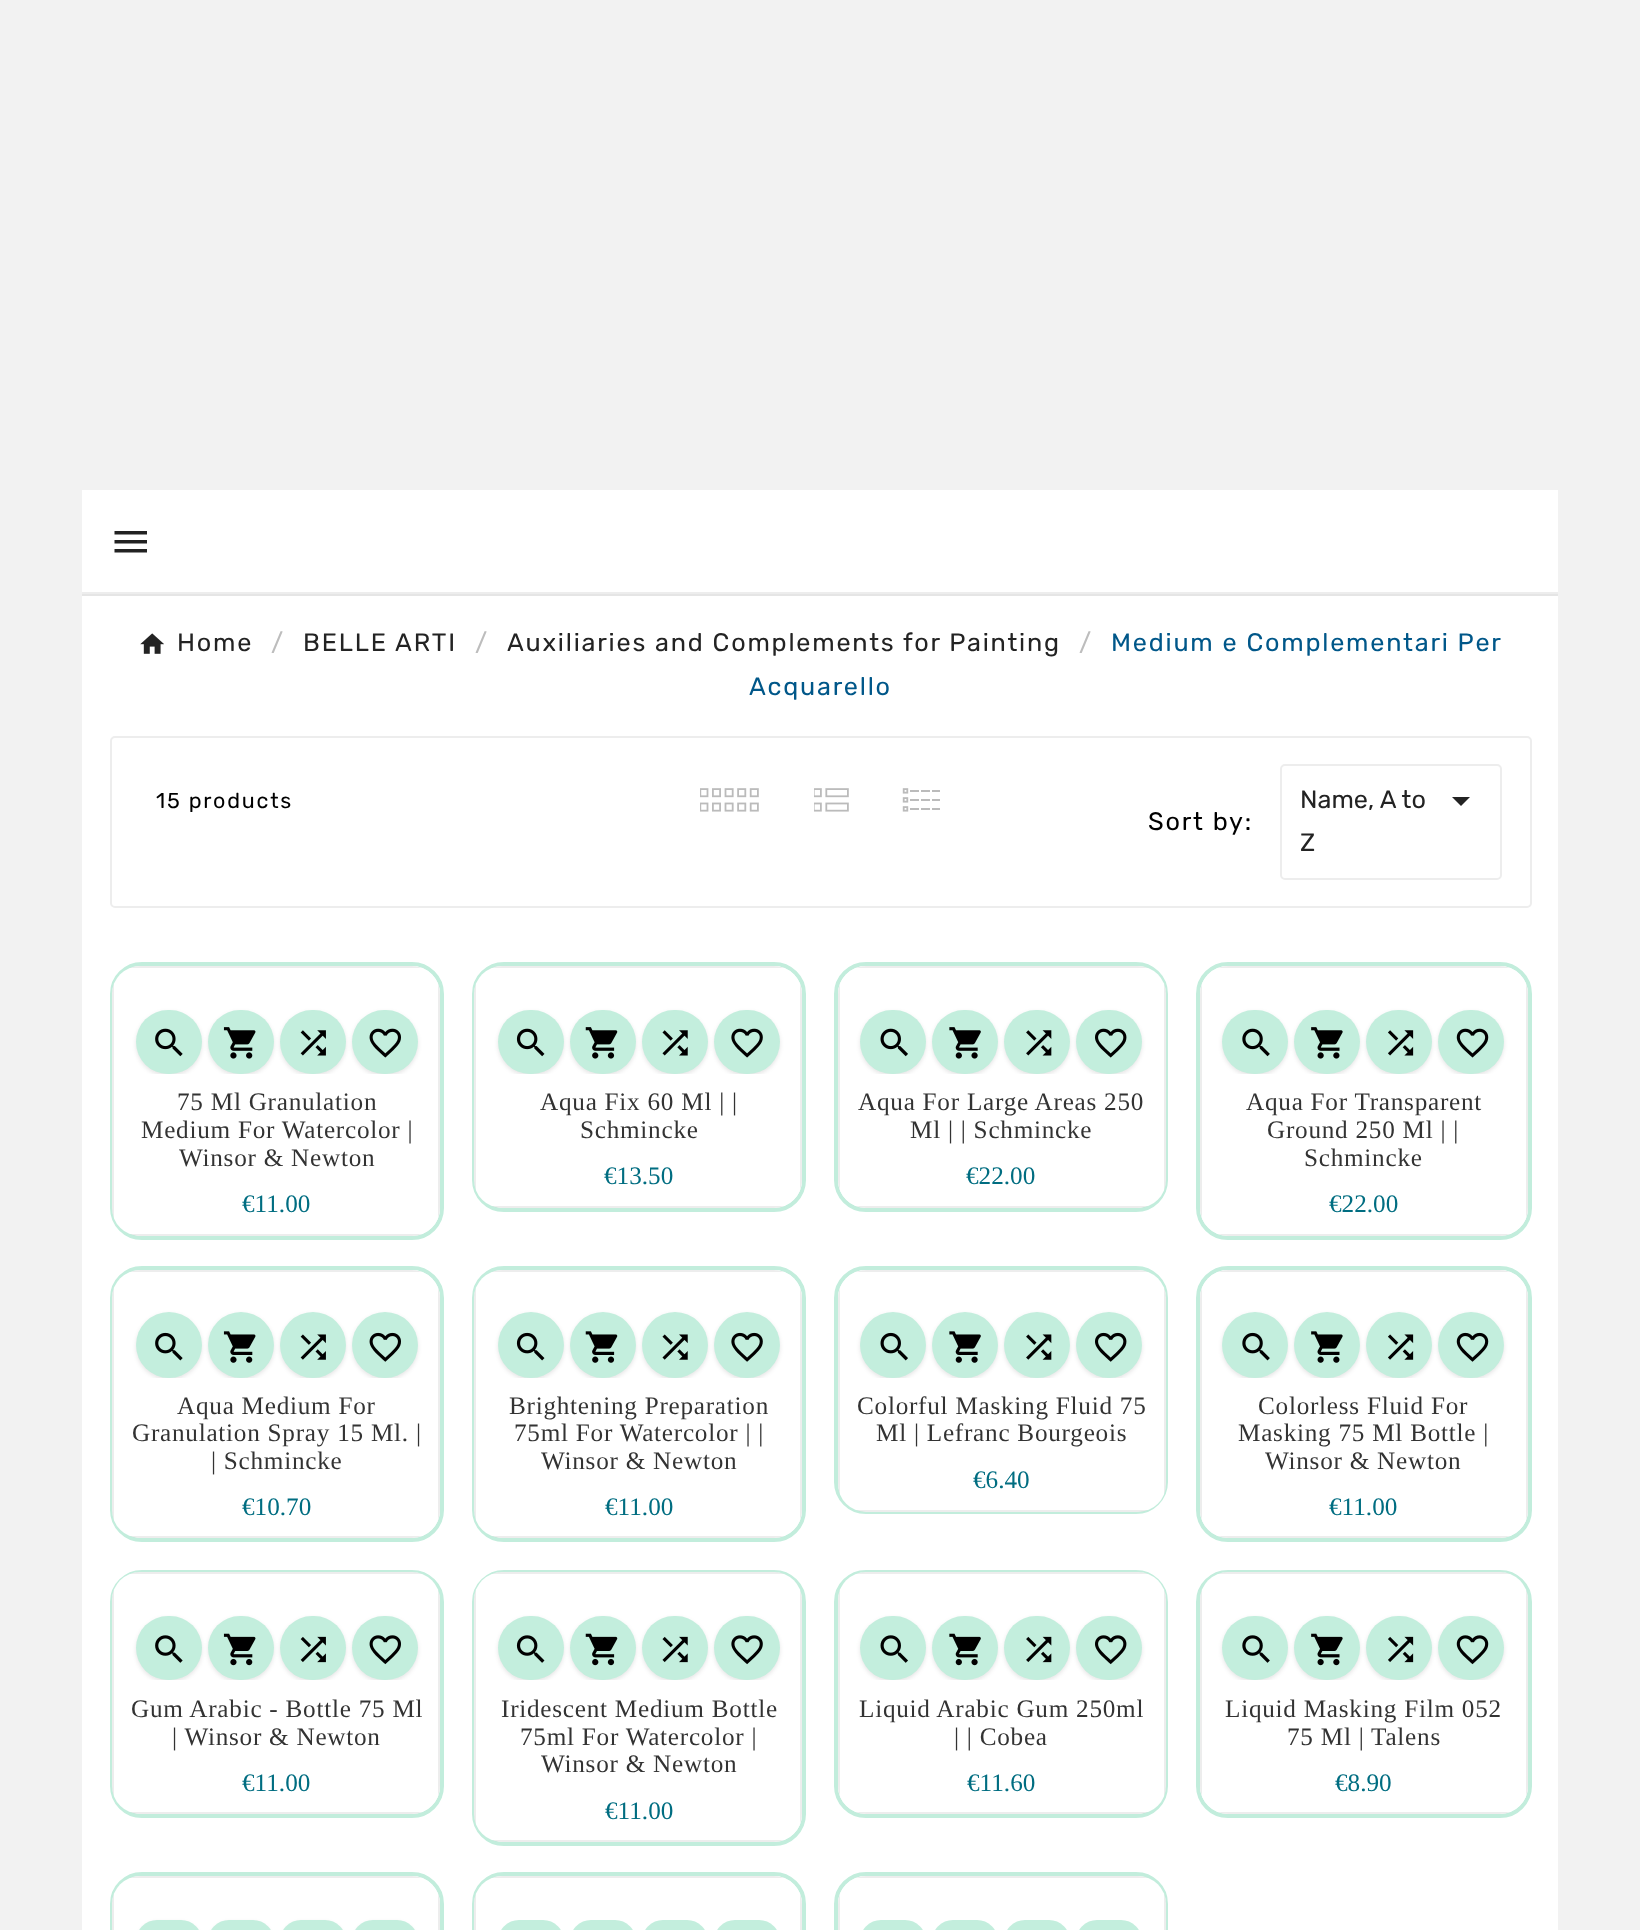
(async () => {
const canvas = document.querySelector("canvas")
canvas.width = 1640
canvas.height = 1930
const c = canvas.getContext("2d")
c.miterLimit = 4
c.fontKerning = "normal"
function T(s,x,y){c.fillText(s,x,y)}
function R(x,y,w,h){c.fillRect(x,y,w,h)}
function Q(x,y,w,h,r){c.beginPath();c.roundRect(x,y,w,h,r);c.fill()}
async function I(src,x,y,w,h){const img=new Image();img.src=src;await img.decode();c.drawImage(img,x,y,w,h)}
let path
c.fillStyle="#f2f2f2"
R(0,0,1640,1930)
c.fillStyle="#fff"
R(82,490,1476,1440)
c.fillStyle="#e5e5e5"
R(82,594,1476,2)
c.fillStyle="#ededed"
R(82,592,1476,2)
c.fillStyle="#222"
path = new Path2D("M114.5 531h32.5v3.5h-32.5zm0 12.5v-3.5h32.5v3.5zm0 9v-3.5h32.5v3.5z")
c.fill(path)
await I("1.png",140,633,24,21)
c.letterSpacing="1.8px"
c.font="25.2px Rubik"
c.fillStyle="#232323"
T("Home",177,651)
c.fillStyle="#bdbdbd"
T("/",271,651)
c.fillStyle="#232323"
T("BELLE ARTI",303,651)
c.fillStyle="#bdbdbd"
T("/",475,651)
c.fillStyle="#232323"
T("Auxiliaries and Complements for Painting",507,651)
c.fillStyle="#bdbdbd"
T("/",1079,651)
c.fillStyle="#005789"
T("Medium e Complementari Per",1111,651)
T("Acquarello",749,695)
c.beginPath()
c.roundRect(111,737,1420,170,4)
c.strokeStyle="#ededed"
c.lineWidth=2
c.stroke()
c.font="21.5px Rubik"
c.fillStyle="#000"
T("15 products",156,808)
await I("2.png",700,788,59,24)
await I("3.png",814,788,35,24)
await I("4.png",902,788,38,24)
c.font="25.2px Rubik"
T("Sort by:",1148,830)
c.beginPath()
c.roundRect(1281,765,220,114,4)
c.stroke()
c.letterSpacing="0px"
c.fillStyle="#232323"
T("Name, A to",1300,808)
path = new Path2D("M1452 797h18l-9 9z")
c.fill(path)
T("Z",1300,851)
c.beginPath()
c.roundRect(112,964,330,274,30)
c.strokeStyle="#c2eddc"
c.lineWidth=4
c.stroke()
c.fillStyle="#fff"
Q(112,966,328,270,28)
c.fillStyle="#00000012"
path = new Path2D("M112 994v214c0 4 1 7 2 10v-234c-1 3-2 6-2 10zm28-28c-4 0-7 1-10 2h292c-3-1-6-2-10-2zm300 28c0-4-1-7-2-10v234c1-3 2-6 2-10zm-28 242c4 0 7-1 10-2h-292c3 1 6 2 10 2z")
c.fill(path,"evenodd")
c.save()
c.beginPath()
c.rect(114,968,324,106)
c.clip()
c.fillStyle="#0000001a"
c.filter="blur(2px)"
c.beginPath()
c.roundRect(280,1012,66,64,32)
c.fill()
c.filter="none"
c.restore()
c.fillStyle="#c3eedd"
Q(280,1010,66,64,32)
c.save()
c.beginPath()
c.rect(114,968,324,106)
c.clip()
c.fillStyle="#0000001a"
c.filter="blur(2px)"
c.beginPath()
c.roundRect(208,1012,66,64,32)
c.fill()
c.filter="none"
c.restore()
Q(208,1010,66,64,32)
c.save()
c.beginPath()
c.rect(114,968,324,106)
c.clip()
c.fillStyle="#0000001a"
c.filter="blur(2px)"
c.beginPath()
c.roundRect(136,1012,66,64,32)
c.fill()
c.filter="none"
c.restore()
Q(136,1010,66,64,32)
await I("5.png",155,1028,28,29)
await I("6.png",223,1027,33,32)
await I("7.png",300,1030,26,26)
c.save()
c.beginPath()
c.rect(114,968,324,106)
c.clip()
c.fillStyle="#0000001a"
c.filter="blur(2px)"
c.beginPath()
c.roundRect(352,1012,66,64,32)
c.fill()
c.filter="none"
c.restore()
Q(352,1010,66,64,32)
await I("8.png",369,1028,32,30)
c.letterSpacing="0.75px"
c.font="25.2px Liberation Serif"
c.fillStyle="#333"
T("75 Ml Granulation",177,1110)
T("Medium For Watercolor |",141,1138)
T("Winsor & Newton",179,1166)
c.letterSpacing="0px"
c.fillStyle="#006d81"
T("€11.00",242,1212)
c.beginPath()
c.roundRect(474,964,330,246,30)
c.stroke()
c.fillStyle="#fff"
Q(474,966,328,242,28)
c.fillStyle="#00000012"
path = new Path2D("M474 994v186c0 4 1 7 2 10v-206c-1 3-2 6-2 10zm28-28c-4 0-7 1-10 2h292c-3-1-6-2-10-2zm300 28c0-4-1-7-2-10v206c1-3 2-6 2-10zm-28 214c4 0 7-1 10-2h-292c3 1 6 2 10 2z")
c.fill(path,"evenodd")
c.save()
c.beginPath()
c.rect(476,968,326,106)
c.clip()
c.fillStyle="#0000001a"
c.filter="blur(2px)"
c.beginPath()
c.roundRect(642,1012,66,64,32)
c.fill()
c.filter="none"
c.restore()
c.fillStyle="#c3eedd"
Q(642,1010,66,64,32)
c.save()
c.beginPath()
c.rect(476,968,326,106)
c.clip()
c.fillStyle="#0000001a"
c.filter="blur(2px)"
c.beginPath()
c.roundRect(570,1012,66,64,32)
c.fill()
c.filter="none"
c.restore()
Q(570,1010,66,64,32)
c.save()
c.beginPath()
c.rect(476,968,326,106)
c.clip()
c.fillStyle="#0000001a"
c.filter="blur(2px)"
c.beginPath()
c.roundRect(498,1012,66,64,32)
c.fill()
c.filter="none"
c.restore()
Q(498,1010,66,64,32)
await I("9.png",516,1028,29,29)
await I("10.png",585,1027,33,32)
await I("11.png",662,1030,26,26)
c.save()
c.beginPath()
c.rect(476,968,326,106)
c.clip()
c.fillStyle="#0000001a"
c.filter="blur(2px)"
c.beginPath()
c.roundRect(714,1012,66,64,32)
c.fill()
c.filter="none"
c.restore()
Q(714,1010,66,64,32)
await I("12.png",731,1028,32,30)
c.letterSpacing="0.75px"
c.fillStyle="#333"
T("Aqua Fix 60 Ml | |",540,1110)
T("Schmincke",580,1138)
c.letterSpacing="0px"
c.fillStyle="#006d81"
T("€13.50",604,1184)
c.beginPath()
c.roundRect(836,964,330,246,30)
c.stroke()
c.fillStyle="#fff"
Q(838,966,328,242,28)
c.fillStyle="#00000012"
path = new Path2D("M838 994v186c0 4 1 7 2 10v-206c-1 3-2 6-2 10zm28-28c-4 0-7 1-10 2h292c-3-1-6-2-10-2zm300 28c0-4-1-7-2-10v206c1-3 2-6 2-10zm-28 214c4 0 7-1 10-2h-292c3 1 6 2 10 2z")
c.fill(path,"evenodd")
c.save()
c.beginPath()
c.rect(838,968,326,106)
c.clip()
c.fillStyle="#0000001a"
c.filter="blur(2px)"
c.beginPath()
c.roundRect(1004,1012,66,64,32)
c.fill()
c.filter="none"
c.restore()
c.fillStyle="#c3eedd"
Q(1004,1010,66,64,32)
c.save()
c.beginPath()
c.rect(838,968,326,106)
c.clip()
c.fillStyle="#0000001a"
c.filter="blur(2px)"
c.beginPath()
c.roundRect(932,1012,66,64,32)
c.fill()
c.filter="none"
c.restore()
Q(932,1010,66,64,32)
c.save()
c.beginPath()
c.rect(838,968,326,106)
c.clip()
c.fillStyle="#0000001a"
c.filter="blur(2px)"
c.beginPath()
c.roundRect(860,1012,66,64,32)
c.fill()
c.filter="none"
c.restore()
Q(860,1010,66,64,32)
await I("13.png",880,1028,28,29)
await I("14.png",949,1027,32,32)
await I("15.png",1026,1030,26,26)
c.save()
c.beginPath()
c.rect(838,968,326,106)
c.clip()
c.fillStyle="#0000001a"
c.filter="blur(2px)"
c.beginPath()
c.roundRect(1076,1012,66,64,32)
c.fill()
c.filter="none"
c.restore()
Q(1076,1010,66,64,32)
await I("16.png",1095,1028,32,30)
c.letterSpacing="0.75px"
c.fillStyle="#333"
T("Aqua For Large Areas 250",858,1110)
T("Ml | | Schmincke",910,1138)
c.letterSpacing="0px"
c.fillStyle="#006d81"
T("€22.00",966,1184)
c.beginPath()
c.roundRect(1198,964,332,274,30)
c.stroke()
c.fillStyle="#fff"
Q(1200,966,328,270,28)
c.fillStyle="#00000012"
path = new Path2D("M1200 994v214c0 4 1 7 2 10v-234c-1 3-2 6-2 10zm28-28c-4 0-7 1-10 2h292c-3-1-6-2-10-2zm300 28c0-4-1-7-2-10v234c1-3 2-6 2-10zm-28 242c4 0 7-1 10-2h-292c3 1 6 2 10 2z")
c.fill(path,"evenodd")
c.save()
c.beginPath()
c.rect(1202,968,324,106)
c.clip()
c.fillStyle="#0000001a"
c.filter="blur(2px)"
c.beginPath()
c.roundRect(1366,1012,66,64,32)
c.fill()
c.filter="none"
c.restore()
c.fillStyle="#c3eedd"
Q(1366,1010,66,64,32)
c.save()
c.beginPath()
c.rect(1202,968,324,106)
c.clip()
c.fillStyle="#0000001a"
c.filter="blur(2px)"
c.beginPath()
c.roundRect(1294,1012,66,64,32)
c.fill()
c.filter="none"
c.restore()
Q(1294,1010,66,64,32)
c.save()
c.beginPath()
c.rect(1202,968,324,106)
c.clip()
c.fillStyle="#0000001a"
c.filter="blur(2px)"
c.beginPath()
c.roundRect(1222,1012,66,64,32)
c.fill()
c.filter="none"
c.restore()
Q(1222,1010,66,64,32)
await I("17.png",1242,1028,28,29)
await I("18.png",1311,1027,32,32)
await I("19.png",1388,1030,26,26)
c.save()
c.beginPath()
c.rect(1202,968,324,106)
c.clip()
c.fillStyle="#0000001a"
c.filter="blur(2px)"
c.beginPath()
c.roundRect(1438,1012,66,64,32)
c.fill()
c.filter="none"
c.restore()
Q(1438,1010,66,64,32)
await I("20.png",1456,1028,33,30)
c.letterSpacing="0.75px"
c.fillStyle="#333"
T("Aqua For Transparent",1246,1110)
T("Ground 250 Ml | |",1267,1138)
T("Schmincke",1304,1166)
c.letterSpacing="0px"
c.fillStyle="#006d81"
T("€22.00",1329,1212)
c.beginPath()
c.roundRect(112,1268,330,272,30)
c.stroke()
c.fillStyle="#fff"
Q(112,1270,328,268,28)
c.fillStyle="#00000012"
path = new Path2D("M112 1298v212c0 4 1 7 2 10v-232c-1 3-2 6-2 10zm28-28c-4 0-7 1-10 2h292c-3-1-6-2-10-2zm300 28c0-4-1-7-2-10v232c1-3 2-6 2-10zm-28 240c4 0 7-1 10-2h-292c3 1 6 2 10 2z")
c.fill(path,"evenodd")
c.save()
c.beginPath()
c.rect(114,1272,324,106)
c.clip()
c.fillStyle="#0000001a"
c.filter="blur(2px)"
c.beginPath()
c.roundRect(280,1314,66,66,33)
c.fill()
c.filter="none"
c.restore()
c.fillStyle="#c3eedd"
c.beginPath()
c.arc(313,1345,33,0,7)
c.fill()
c.save()
c.beginPath()
c.rect(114,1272,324,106)
c.clip()
c.fillStyle="#0000001a"
c.filter="blur(2px)"
c.beginPath()
c.roundRect(208,1314,66,66,33)
c.fill()
c.filter="none"
c.restore()
c.beginPath()
c.arc(241,1345,33,0,7)
c.fill()
c.save()
c.beginPath()
c.rect(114,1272,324,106)
c.clip()
c.fillStyle="#0000001a"
c.filter="blur(2px)"
c.beginPath()
c.roundRect(136,1314,66,66,33)
c.fill()
c.filter="none"
c.restore()
c.beginPath()
c.arc(169,1345,33,0,7)
c.fill()
await I("21.png",155,1332,28,29)
await I("22.png",223,1331,33,32)
await I("23.png",300,1334,26,26)
c.save()
c.beginPath()
c.rect(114,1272,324,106)
c.clip()
c.fillStyle="#0000001a"
c.filter="blur(2px)"
c.beginPath()
c.roundRect(352,1314,66,66,33)
c.fill()
c.filter="none"
c.restore()
c.beginPath()
c.arc(385,1345,33,0,7)
c.fill()
await I("24.png",369,1332,32,30)
c.letterSpacing="0.75px"
c.fillStyle="#333"
T("Aqua Medium For",177,1414)
T("Granulation Spray 15 Ml. |",132,1441)
T("| Schmincke",211,1469)
c.letterSpacing="0px"
c.fillStyle="#006d81"
T("€10.70",242,1515)
c.beginPath()
c.roundRect(474,1268,330,272,30)
c.stroke()
c.fillStyle="#fff"
Q(474,1270,328,268,28)
c.fillStyle="#00000012"
path = new Path2D("M474 1298v212c0 4 1 7 2 10v-232c-1 3-2 6-2 10zm28-28c-4 0-7 1-10 2h292c-3-1-6-2-10-2zm300 28c0-4-1-7-2-10v232c1-3 2-6 2-10zm-28 240c4 0 7-1 10-2h-292c3 1 6 2 10 2z")
c.fill(path,"evenodd")
c.save()
c.beginPath()
c.rect(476,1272,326,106)
c.clip()
c.fillStyle="#0000001a"
c.filter="blur(2px)"
c.beginPath()
c.roundRect(642,1314,66,66,33)
c.fill()
c.filter="none"
c.restore()
c.fillStyle="#c3eedd"
c.beginPath()
c.arc(675,1345,33,0,7)
c.fill()
c.save()
c.beginPath()
c.rect(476,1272,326,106)
c.clip()
c.fillStyle="#0000001a"
c.filter="blur(2px)"
c.beginPath()
c.roundRect(570,1314,66,66,33)
c.fill()
c.filter="none"
c.restore()
c.beginPath()
c.arc(603,1345,33,0,7)
c.fill()
c.save()
c.beginPath()
c.rect(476,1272,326,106)
c.clip()
c.fillStyle="#0000001a"
c.filter="blur(2px)"
c.beginPath()
c.roundRect(498,1314,66,66,33)
c.fill()
c.filter="none"
c.restore()
c.beginPath()
c.arc(531,1345,33,0,7)
c.fill()
await I("25.png",516,1332,29,29)
await I("26.png",585,1331,33,32)
await I("27.png",662,1334,26,26)
c.save()
c.beginPath()
c.rect(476,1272,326,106)
c.clip()
c.fillStyle="#0000001a"
c.filter="blur(2px)"
c.beginPath()
c.roundRect(714,1314,66,66,33)
c.fill()
c.filter="none"
c.restore()
c.beginPath()
c.arc(747,1345,33,0,7)
c.fill()
await I("28.png",731,1332,32,30)
c.letterSpacing="0.75px"
c.fillStyle="#333"
T("Brightening Preparation",509,1414)
T("75ml For Watercolor | |",514,1441)
T("Winsor & Newton",541,1469)
c.letterSpacing="0px"
c.fillStyle="#006d81"
T("€11.00",605,1515)
c.beginPath()
c.roundRect(836,1268,330,244,30)
c.stroke()
c.fillStyle="#fff"
Q(838,1270,328,242,28)
c.fillStyle="#00000012"
path = new Path2D("M838 1298v186c0 4 1 7 2 10v-206c-1 3-2 6-2 10zm28-28c-4 0-7 1-10 2h292c-3-1-6-2-10-2zm300 28c0-4-1-7-2-10v206c1-3 2-6 2-10zm-28 214c4 0 7-1 10-2h-292c3 1 6 2 10 2z")
c.fill(path,"evenodd")
c.save()
c.beginPath()
c.rect(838,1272,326,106)
c.clip()
c.fillStyle="#0000001a"
c.filter="blur(2px)"
c.beginPath()
c.roundRect(1004,1314,66,66,33)
c.fill()
c.filter="none"
c.restore()
c.fillStyle="#c3eedd"
c.beginPath()
c.arc(1037,1345,33,0,7)
c.fill()
c.save()
c.beginPath()
c.rect(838,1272,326,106)
c.clip()
c.fillStyle="#0000001a"
c.filter="blur(2px)"
c.beginPath()
c.roundRect(932,1314,66,66,33)
c.fill()
c.filter="none"
c.restore()
c.beginPath()
c.arc(965,1345,33,0,7)
c.fill()
c.save()
c.beginPath()
c.rect(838,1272,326,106)
c.clip()
c.fillStyle="#0000001a"
c.filter="blur(2px)"
c.beginPath()
c.roundRect(860,1314,66,66,33)
c.fill()
c.filter="none"
c.restore()
c.beginPath()
c.arc(893,1345,33,0,7)
c.fill()
await I("29.png",880,1332,28,29)
await I("30.png",949,1331,32,32)
await I("31.png",1026,1334,26,26)
c.save()
c.beginPath()
c.rect(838,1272,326,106)
c.clip()
c.fillStyle="#0000001a"
c.filter="blur(2px)"
c.beginPath()
c.roundRect(1076,1314,66,66,33)
c.fill()
c.filter="none"
c.restore()
c.beginPath()
c.arc(1109,1345,33,0,7)
c.fill()
await I("32.png",1095,1332,32,30)
c.letterSpacing="0.75px"
c.fillStyle="#333"
T("Colorful Masking Fluid 75",857,1414)
T("Ml | Lefranc Bourgeois",876,1441)
c.letterSpacing="0px"
c.fillStyle="#006d81"
T("€6.40",973,1488)
c.beginPath()
c.roundRect(1198,1268,332,272,30)
c.stroke()
c.fillStyle="#fff"
Q(1200,1270,328,268,28)
c.fillStyle="#00000012"
path = new Path2D("M1200 1298v212c0 4 1 7 2 10v-232c-1 3-2 6-2 10zm28-28c-4 0-7 1-10 2h292c-3-1-6-2-10-2zm300 28c0-4-1-7-2-10v232c1-3 2-6 2-10zm-28 240c4 0 7-1 10-2h-292c3 1 6 2 10 2z")
c.fill(path,"evenodd")
c.save()
c.beginPath()
c.rect(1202,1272,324,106)
c.clip()
c.fillStyle="#0000001a"
c.filter="blur(2px)"
c.beginPath()
c.roundRect(1366,1314,66,66,33)
c.fill()
c.filter="none"
c.restore()
c.fillStyle="#c3eedd"
c.beginPath()
c.arc(1399,1345,33,0,7)
c.fill()
c.save()
c.beginPath()
c.rect(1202,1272,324,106)
c.clip()
c.fillStyle="#0000001a"
c.filter="blur(2px)"
c.beginPath()
c.roundRect(1294,1314,66,66,33)
c.fill()
c.filter="none"
c.restore()
c.beginPath()
c.arc(1327,1345,33,0,7)
c.fill()
c.save()
c.beginPath()
c.rect(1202,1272,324,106)
c.clip()
c.fillStyle="#0000001a"
c.filter="blur(2px)"
c.beginPath()
c.roundRect(1222,1314,66,66,33)
c.fill()
c.filter="none"
c.restore()
c.beginPath()
c.arc(1255,1345,33,0,7)
c.fill()
await I("33.png",1242,1332,28,29)
await I("34.png",1311,1331,32,32)
await I("35.png",1388,1334,26,26)
c.save()
c.beginPath()
c.rect(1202,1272,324,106)
c.clip()
c.fillStyle="#0000001a"
c.filter="blur(2px)"
c.beginPath()
c.roundRect(1438,1314,66,66,33)
c.fill()
c.filter="none"
c.restore()
c.beginPath()
c.arc(1471,1345,33,0,7)
c.fill()
await I("36.png",1456,1332,33,30)
c.letterSpacing="0.75px"
c.fillStyle="#333"
T("Colorless Fluid For",1258,1414)
T("Masking 75 Ml Bottle |",1238,1441)
T("Winsor & Newton",1265,1469)
c.letterSpacing="0px"
c.fillStyle="#006d81"
T("€11.00",1329,1515)
c.beginPath()
c.roundRect(112,1572,330,244,30)
c.stroke()
c.fillStyle="#fff"
Q(112,1572,328,242,28)
c.fillStyle="#00000012"
path = new Path2D("M112 1600v186c0 4 1 7 2 10v-206c-1 3-2 6-2 10zm28-28c-4 0-7 1-10 2h292c-3-1-6-2-10-2zm300 28c0-4-1-7-2-10v206c1-3 2-6 2-10zm-28 214c4 0 7-1 10-2h-292c3 1 6 2 10 2z")
c.fill(path,"evenodd")
c.save()
c.beginPath()
c.rect(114,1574,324,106)
c.clip()
c.fillStyle="#0000001a"
c.filter="blur(2px)"
c.beginPath()
c.roundRect(280,1618,66,64,32)
c.fill()
c.filter="none"
c.restore()
c.fillStyle="#c3eedd"
Q(280,1616,66,64,32)
c.save()
c.beginPath()
c.rect(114,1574,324,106)
c.clip()
c.fillStyle="#0000001a"
c.filter="blur(2px)"
c.beginPath()
c.roundRect(208,1618,66,64,32)
c.fill()
c.filter="none"
c.restore()
Q(208,1616,66,64,32)
c.save()
c.beginPath()
c.rect(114,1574,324,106)
c.clip()
c.fillStyle="#0000001a"
c.filter="blur(2px)"
c.beginPath()
c.roundRect(136,1618,66,64,32)
c.fill()
c.filter="none"
c.restore()
Q(136,1616,66,64,32)
await I("37.png",155,1635,28,28)
await I("38.png",223,1633,33,33)
await I("39.png",300,1636,26,27)
c.save()
c.beginPath()
c.rect(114,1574,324,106)
c.clip()
c.fillStyle="#0000001a"
c.filter="blur(2px)"
c.beginPath()
c.roundRect(352,1618,66,64,32)
c.fill()
c.filter="none"
c.restore()
Q(352,1616,66,64,32)
await I("40.png",369,1635,32,30)
c.letterSpacing="0.75px"
c.fillStyle="#333"
T("Gum Arabic - Bottle 75 Ml",131,1717)
T("| Winsor & Newton",172,1745)
c.letterSpacing="0px"
c.fillStyle="#006d81"
T("€11.00",242,1791)
c.beginPath()
c.roundRect(474,1572,330,272,30)
c.stroke()
c.fillStyle="#fff"
Q(474,1572,328,270,28)
c.fillStyle="#00000012"
path = new Path2D("M474 1600v214c0 4 1 7 2 10v-234c-1 3-2 6-2 10zm28-28c-4 0-7 1-10 2h292c-3-1-6-2-10-2zm300 28c0-4-1-7-2-10v234c1-3 2-6 2-10zm-28 242c4 0 7-1 10-2h-292c3 1 6 2 10 2z")
c.fill(path,"evenodd")
c.save()
c.beginPath()
c.rect(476,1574,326,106)
c.clip()
c.fillStyle="#0000001a"
c.filter="blur(2px)"
c.beginPath()
c.roundRect(642,1618,66,64,32)
c.fill()
c.filter="none"
c.restore()
c.fillStyle="#c3eedd"
Q(642,1616,66,64,32)
c.save()
c.beginPath()
c.rect(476,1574,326,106)
c.clip()
c.fillStyle="#0000001a"
c.filter="blur(2px)"
c.beginPath()
c.roundRect(570,1618,66,64,32)
c.fill()
c.filter="none"
c.restore()
Q(570,1616,66,64,32)
c.save()
c.beginPath()
c.rect(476,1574,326,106)
c.clip()
c.fillStyle="#0000001a"
c.filter="blur(2px)"
c.beginPath()
c.roundRect(498,1618,66,64,32)
c.fill()
c.filter="none"
c.restore()
Q(498,1616,66,64,32)
await I("41.png",516,1635,29,28)
await I("42.png",585,1633,33,33)
await I("43.png",662,1636,26,27)
c.save()
c.beginPath()
c.rect(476,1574,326,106)
c.clip()
c.fillStyle="#0000001a"
c.filter="blur(2px)"
c.beginPath()
c.roundRect(714,1618,66,64,32)
c.fill()
c.filter="none"
c.restore()
Q(714,1616,66,64,32)
await I("44.png",731,1635,32,30)
c.letterSpacing="0.75px"
c.fillStyle="#333"
T("Iridescent Medium Bottle",501,1717)
T("75ml For Watercolor |",520,1745)
T("Winsor & Newton",541,1772)
c.letterSpacing="0px"
c.fillStyle="#006d81"
T("€11.00",605,1819)
c.beginPath()
c.roundRect(836,1572,330,244,30)
c.stroke()
c.fillStyle="#fff"
Q(838,1572,328,242,28)
c.fillStyle="#00000012"
path = new Path2D("M838 1600v186c0 4 1 7 2 10v-206c-1 3-2 6-2 10zm28-28c-4 0-7 1-10 2h292c-3-1-6-2-10-2zm300 28c0-4-1-7-2-10v206c1-3 2-6 2-10zm-28 214c4 0 7-1 10-2h-292c3 1 6 2 10 2z")
c.fill(path,"evenodd")
c.save()
c.beginPath()
c.rect(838,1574,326,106)
c.clip()
c.fillStyle="#0000001a"
c.filter="blur(2px)"
c.beginPath()
c.roundRect(1004,1618,66,64,32)
c.fill()
c.filter="none"
c.restore()
c.fillStyle="#c3eedd"
Q(1004,1616,66,64,32)
c.save()
c.beginPath()
c.rect(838,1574,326,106)
c.clip()
c.fillStyle="#0000001a"
c.filter="blur(2px)"
c.beginPath()
c.roundRect(932,1618,66,64,32)
c.fill()
c.filter="none"
c.restore()
Q(932,1616,66,64,32)
c.save()
c.beginPath()
c.rect(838,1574,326,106)
c.clip()
c.fillStyle="#0000001a"
c.filter="blur(2px)"
c.beginPath()
c.roundRect(860,1618,66,64,32)
c.fill()
c.filter="none"
c.restore()
Q(860,1616,66,64,32)
await I("45.png",880,1635,28,28)
await I("46.png",949,1633,32,33)
await I("47.png",1026,1636,26,27)
c.save()
c.beginPath()
c.rect(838,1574,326,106)
c.clip()
c.fillStyle="#0000001a"
c.filter="blur(2px)"
c.beginPath()
c.roundRect(1076,1618,66,64,32)
c.fill()
c.filter="none"
c.restore()
Q(1076,1616,66,64,32)
await I("48.png",1095,1635,32,30)
c.letterSpacing="0.75px"
c.fillStyle="#333"
T("Liquid Arabic Gum 250ml",859,1717)
T("| | Cobea",954,1745)
c.letterSpacing="0px"
c.fillStyle="#006d81"
T("€11.60",967,1791)
c.beginPath()
c.roundRect(1198,1572,332,244,30)
c.stroke()
c.fillStyle="#fff"
Q(1200,1572,328,242,28)
c.fillStyle="#00000012"
path = new Path2D("M1200 1600v186c0 4 1 7 2 10v-206c-1 3-2 6-2 10zm28-28c-4 0-7 1-10 2h292c-3-1-6-2-10-2zm300 28c0-4-1-7-2-10v206c1-3 2-6 2-10zm-28 214c4 0 7-1 10-2h-292c3 1 6 2 10 2z")
c.fill(path,"evenodd")
c.save()
c.beginPath()
c.rect(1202,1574,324,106)
c.clip()
c.fillStyle="#0000001a"
c.filter="blur(2px)"
c.beginPath()
c.roundRect(1366,1618,66,64,32)
c.fill()
c.filter="none"
c.restore()
c.fillStyle="#c3eedd"
Q(1366,1616,66,64,32)
c.save()
c.beginPath()
c.rect(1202,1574,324,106)
c.clip()
c.fillStyle="#0000001a"
c.filter="blur(2px)"
c.beginPath()
c.roundRect(1294,1618,66,64,32)
c.fill()
c.filter="none"
c.restore()
Q(1294,1616,66,64,32)
c.save()
c.beginPath()
c.rect(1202,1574,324,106)
c.clip()
c.fillStyle="#0000001a"
c.filter="blur(2px)"
c.beginPath()
c.roundRect(1222,1618,66,64,32)
c.fill()
c.filter="none"
c.restore()
Q(1222,1616,66,64,32)
await I("49.png",1242,1635,28,28)
await I("50.png",1311,1633,32,33)
await I("51.png",1388,1636,26,27)
c.save()
c.beginPath()
c.rect(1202,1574,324,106)
c.clip()
c.fillStyle="#0000001a"
c.filter="blur(2px)"
c.beginPath()
c.roundRect(1438,1618,66,64,32)
c.fill()
c.filter="none"
c.restore()
Q(1438,1616,66,64,32)
await I("52.png",1456,1635,33,30)
c.letterSpacing="0.75px"
c.fillStyle="#333"
T("Liquid Masking Film 052",1225,1717)
T("75 Ml | Talens",1287,1745)
c.letterSpacing="0px"
c.fillStyle="#006d81"
T("€8.90",1335,1791)
c.beginPath()
c.roundRect(112,1874,330,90,30)
c.stroke()
c.fillStyle="#fff"
Q(112,1876,328,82,28)
c.fillStyle="#00000012"
path = new Path2D("M112 1904v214c0 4 1 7 2 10v-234c-1 3-2 6-2 10zm28-28c-4 0-7 1-10 2h292c-3-1-6-2-10-2zm300 28c0-4-1-7-2-10v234c1-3 2-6 2-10zm-28 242c4 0 7-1 10-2h-292c3 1 6 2 10 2z")
c.fill(path,"evenodd")
c.fillStyle="#0000001a"
c.filter="blur(2px)"
c.beginPath()
c.roundRect(280,1922,66,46,32)
c.fill()
c.filter="none"
c.fillStyle="#c3eedd"
Q(280,1920,66,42,32)
c.fillStyle="#0000001a"
c.filter="blur(2px)"
c.beginPath()
c.roundRect(208,1922,66,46,32)
c.fill()
c.filter="none"
c.fillStyle="#c3eedd"
Q(208,1920,66,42,32)
c.fillStyle="#0000001a"
c.filter="blur(2px)"
c.beginPath()
c.roundRect(136,1922,66,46,32)
c.fill()
c.filter="none"
c.fillStyle="#c3eedd"
Q(136,1920,66,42,32)
c.fillStyle="#0000001a"
c.filter="blur(2px)"
c.beginPath()
c.roundRect(352,1922,66,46,32)
c.fill()
c.filter="none"
c.fillStyle="#c3eedd"
Q(352,1920,66,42,32)
c.beginPath()
c.roundRect(474,1874,330,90,30)
c.stroke()
c.fillStyle="#fff"
Q(474,1876,328,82,28)
c.fillStyle="#00000012"
path = new Path2D("M474 1904v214c0 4 1 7 2 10v-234c-1 3-2 6-2 10zm28-28c-4 0-7 1-10 2h292c-3-1-6-2-10-2zm300 28c0-4-1-7-2-10v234c1-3 2-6 2-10zm-28 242c4 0 7-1 10-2h-292c3 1 6 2 10 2z")
c.fill(path,"evenodd")
c.fillStyle="#c3eedd"
Q(498,1920,66,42,32)
Q(570,1920,66,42,32)
Q(642,1920,66,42,32)
Q(714,1920,66,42,32)
c.beginPath()
c.roundRect(836,1874,330,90,30)
c.stroke()
c.fillStyle="#fff"
Q(838,1876,328,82,28)
c.fillStyle="#00000012"
path = new Path2D("M838 1904v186c0 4 1 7 2 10v-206c-1 3-2 6-2 10zm28-28c-4 0-7 1-10 2h292c-3-1-6-2-10-2zm300 28c0-4-1-7-2-10v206c1-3 2-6 2-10zm-28 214c4 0 7-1 10-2h-292c3 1 6 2 10 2z")
c.fill(path,"evenodd")
c.fillStyle="#c3eedd"
Q(860,1920,66,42,32)
Q(932,1920,66,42,32)
Q(1004,1920,66,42,32)
Q(1076,1920,66,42,32)
})()
